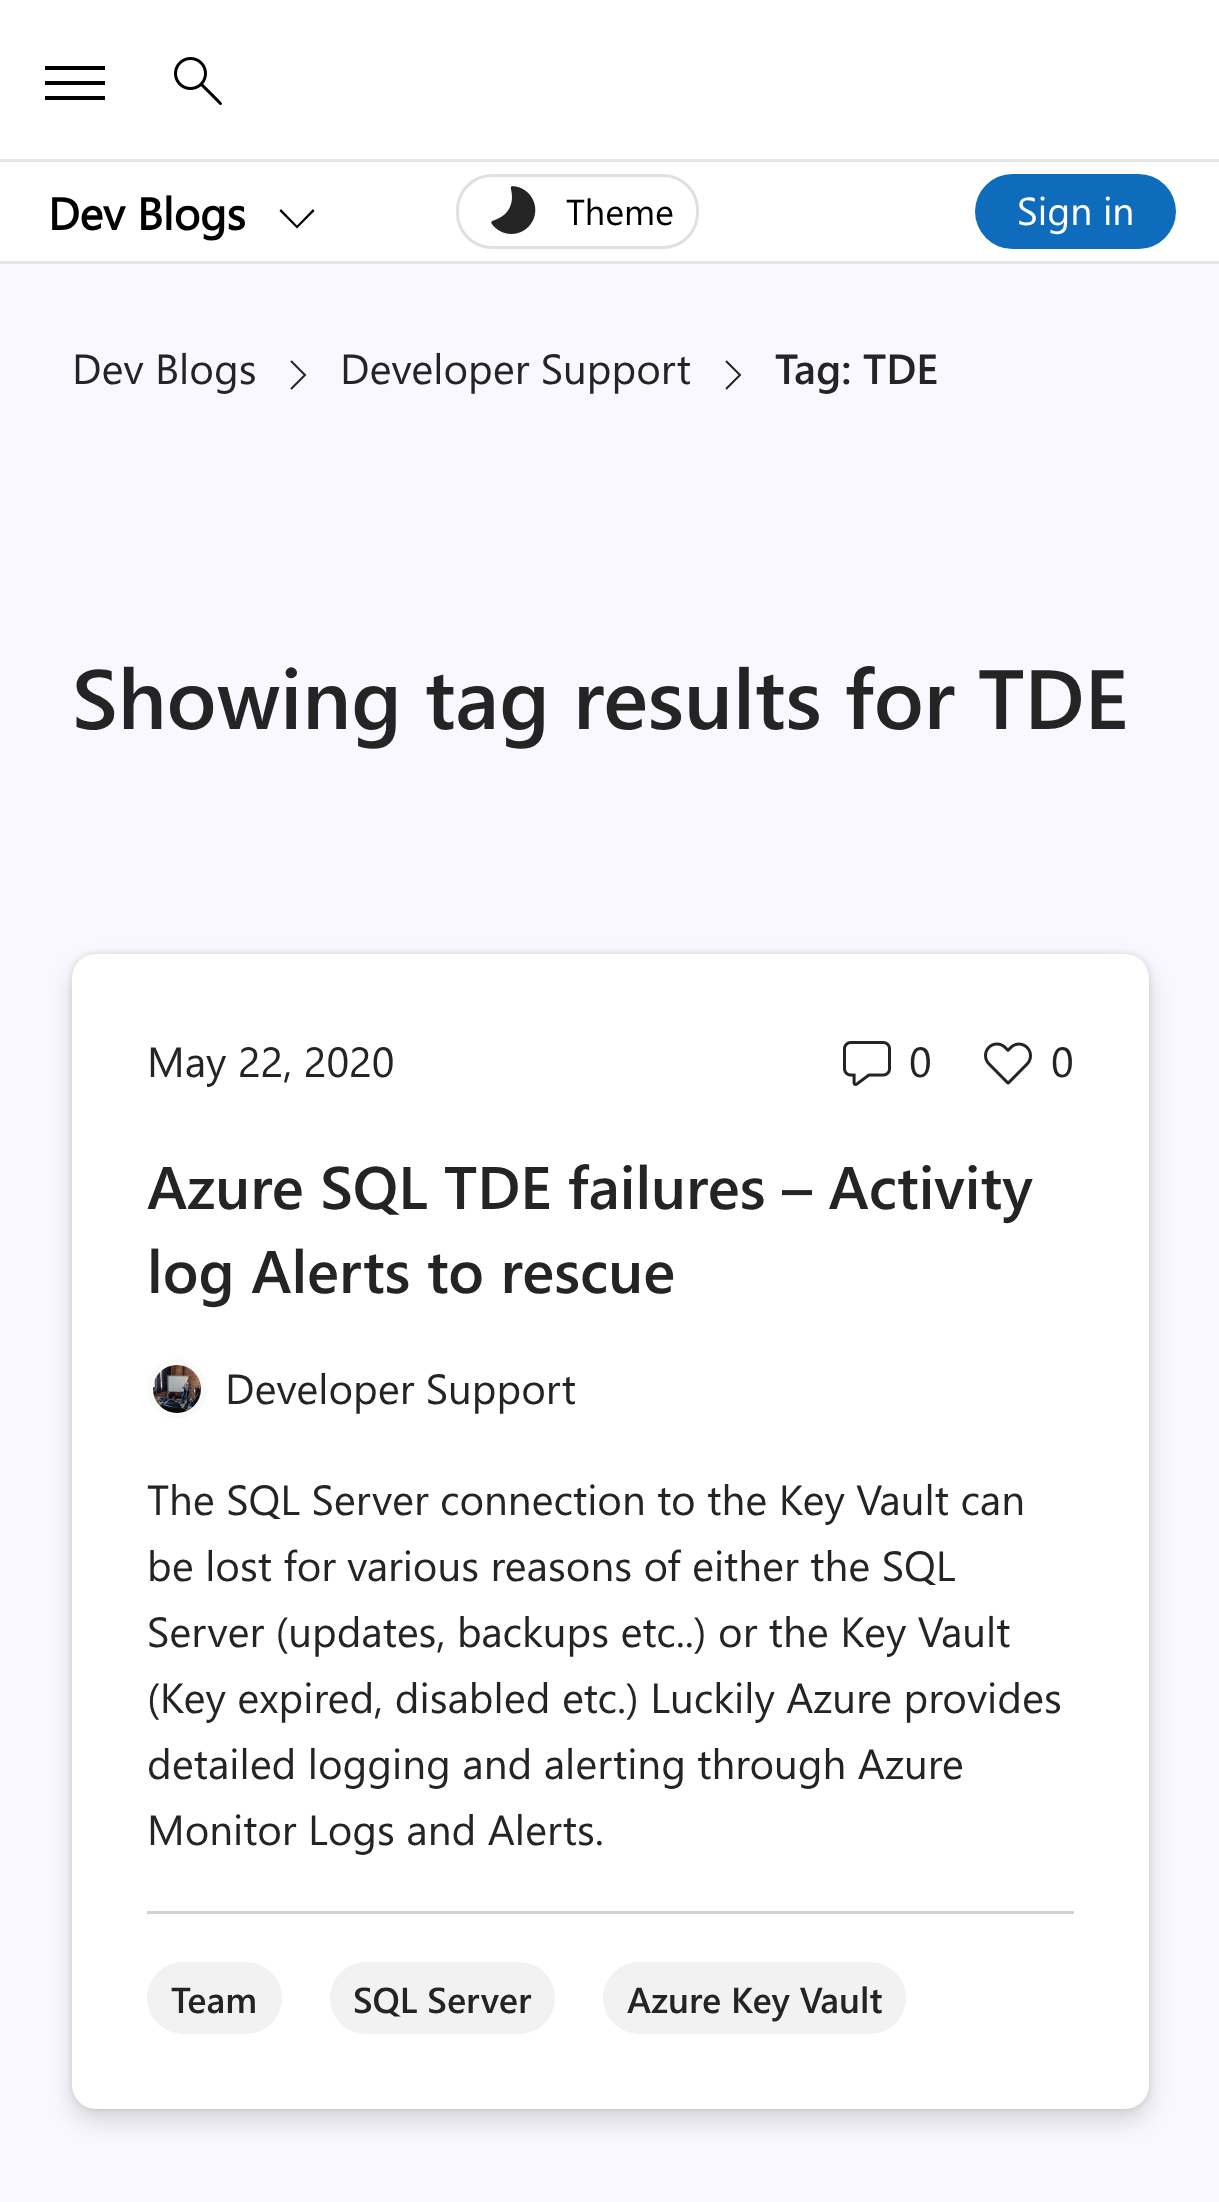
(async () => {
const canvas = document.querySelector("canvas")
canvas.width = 1219
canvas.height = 2202
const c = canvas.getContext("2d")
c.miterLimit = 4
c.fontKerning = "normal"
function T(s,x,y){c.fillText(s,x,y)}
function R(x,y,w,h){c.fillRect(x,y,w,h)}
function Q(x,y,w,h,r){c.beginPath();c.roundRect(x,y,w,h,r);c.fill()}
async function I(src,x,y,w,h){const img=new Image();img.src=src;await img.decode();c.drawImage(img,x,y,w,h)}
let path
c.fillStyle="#f9f8fe"
R(0,0,1219,2202)
c.fillStyle="#fff"
R(0,0,1219,159)
c.fillStyle="#e6e6e6"
R(0,159,1219,3)
c.fillStyle="#000"
path = new Path2D("M105 70h-60v-4h60zm0 30h-60v-4h60zm0-15h-60v-4h60z")
c.fill(path)
await I("1.png",174,57,48,48)
c.fillStyle="#fff"
R(0,162,1219,99)
c.fillStyle="#e6e6e6"
R(0,261,1219,3)
c.font="bold 45px Segoe UI"
c.fillStyle="#000"
T("Dev Blogs",48,230)
path = new Path2D("M313 209l1.5 2l-17.5 17.5l-17.5-17.5l1.5-2l16 16.5z")
c.fill(path)
c.beginPath()
c.roundRect(457.5,175.5,240,72,34.5)
c.strokeStyle="#e0e0e0"
c.lineWidth=3
c.stroke()
await I("2.png",491,186,45,48)
c.font="36px Segoe UI"
T("Theme",566,225)
c.fillStyle="#0f6cbd"
Q(975,174,201,75,37.5)
c.font="39px Segoe UI"
c.fillStyle="#fff"
T("Sign in",1017,225)
c.font="42px Segoe UI"
c.fillStyle="#242424"
T("Dev Blogs",72,384)
path = new Path2D("M291 361l14 14l-14 14")
c.strokeStyle="#242424"
c.lineWidth=2
c.stroke(path)
T("Developer Support",340,384)
path = new Path2D("M726 361l14 14l-14 14")
c.stroke(path)
c.font="600 42px Segoe UI"
T("Tag: TDE",775,384)
c.font="600 84px Segoe UI"
T("Showing tag results for TDE",72,729)
c.fillStyle="#0000001f"
c.filter="blur(3px)"
c.beginPath()
c.roundRect(72,954,1077,1155,24)
c.fill()
c.filter="none"
c.fillStyle="#00000024"
c.filter="blur(12px)"
c.beginPath()
c.roundRect(72,966,1077,1155,24)
c.fill()
c.filter="none"
c.fillStyle="#fff"
Q(72,954,1077,1155,24)
c.font="42px Segoe UI"
c.fillStyle="#242424"
T("May 22, 2020",147,1077)
await I("3.png",843,1041,48,45)
T("0",909,1077)
await I("4.png",984,1042,48,43)
T("0",1051,1077)
c.font="600 60px Segoe UI"
T("Azure SQL TDE failures – Activity",147,1209)
T("log Alerts to rescue",147,1293)
c.beginPath()
c.arc(177,1389,27,0,7)
c.strokeStyle="#fafafa"
c.lineWidth=6
c.stroke()
await I("5.png",153,1365,48,48)
c.font="42px Segoe UI"
T("Developer Support",225,1404)
T("The SQL Server connection to the Key Vault can",147,1515)
T("be lost for various reasons of either the SQL",147,1581)
T("Server (updates, backups etc..) or the Key Vault",147,1647)
T("(Key expired, disabled etc.) Luckily Azure provides",147,1713)
T("detailed logging and alerting through Azure",147,1779)
T("Monitor Logs and Alerts.",147,1845)
c.fillStyle="#d1d1d1"
R(147,1911,927,3)
c.fillStyle="#f2f2f2"
Q(147,1962,135,72,36)
c.font="600 36px Segoe UI"
c.fillStyle="#242424"
T("Team",171,2013)
c.fillStyle="#f2f2f2"
Q(330,1962,225,72,36)
c.fillStyle="#242424"
T("SQL Server",353,2013)
c.fillStyle="#f2f2f2"
Q(603,1962,303,72,36)
c.fillStyle="#242424"
T("Azure Key Vault",627,2013)
})()
